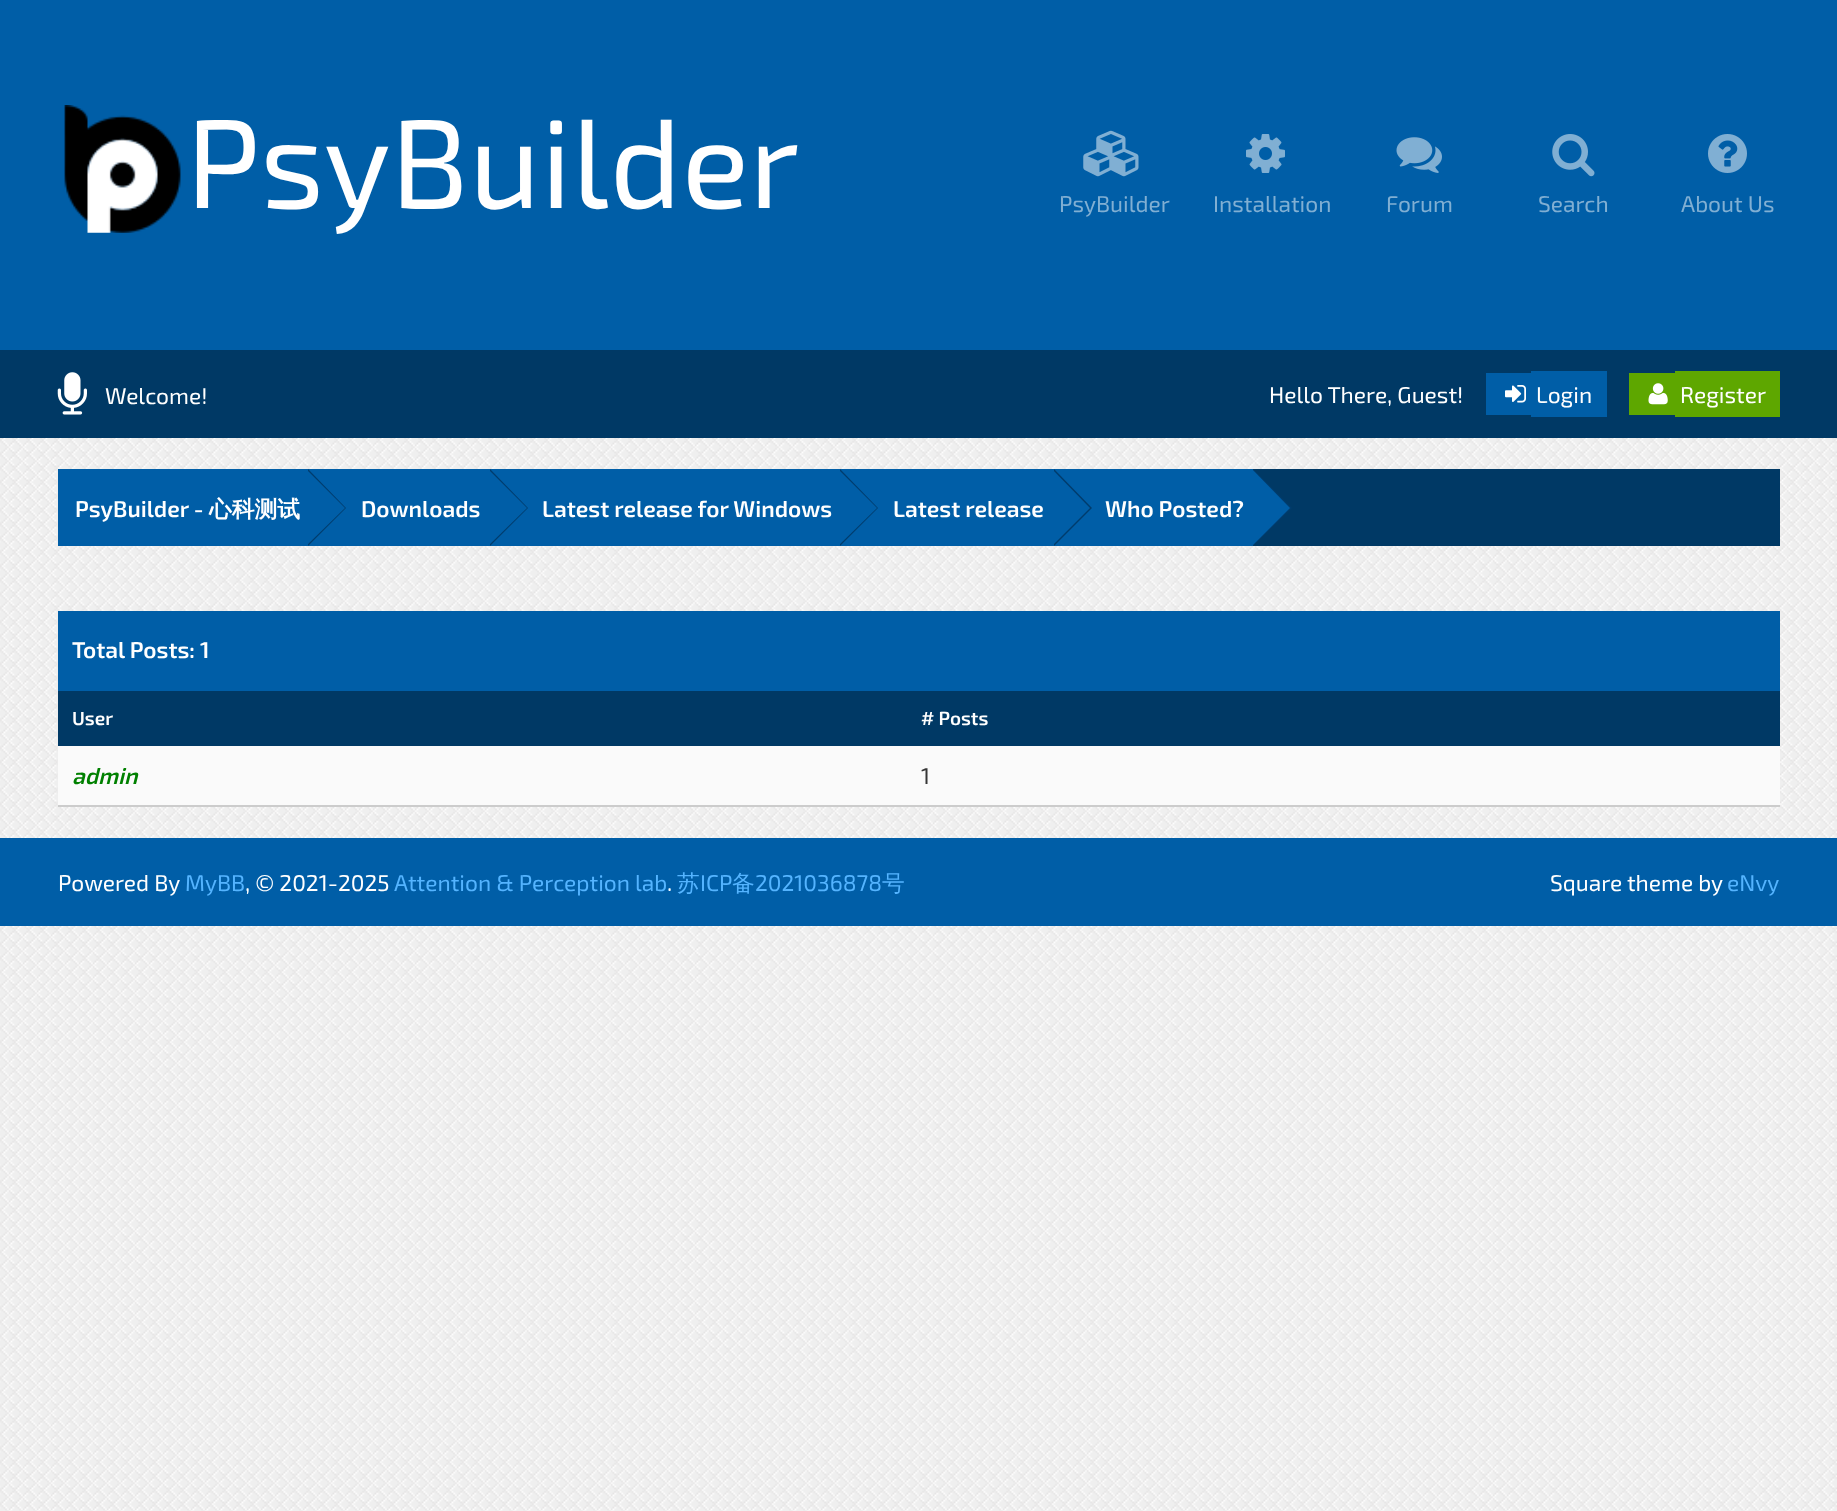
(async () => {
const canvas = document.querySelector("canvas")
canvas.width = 1837
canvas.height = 1511
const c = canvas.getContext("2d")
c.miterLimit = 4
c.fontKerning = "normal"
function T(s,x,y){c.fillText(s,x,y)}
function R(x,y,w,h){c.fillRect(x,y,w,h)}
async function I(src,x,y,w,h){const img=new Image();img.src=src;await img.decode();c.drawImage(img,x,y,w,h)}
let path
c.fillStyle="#efefef"
R(0,0,1837,1511)
await I("1.png",0,438,1837,1073)
c.fillStyle="#005ea7"
R(0,0,1837,350)
await I("2.png",64,105,117,128)
c.font="126px 'Exo 2'"
c.fillStyle="#fff"
T("PsyBuilder",186,208)
await I("3.png",1083,130,56,47)
c.font="22.75px 'Exo 2'"
c.fillStyle="#80afd3"
T("PsyBuilder",1059,212)
await I("4.png",1246,134,39,39)
T("Installation",1213,212)
await I("5.png",1396,137,46,36)
T("Forum",1386,212)
await I("6.png",1552,134,43,43)
T("Search",1538,212)
await I("7.png",1708,134,39,39)
T("About Us",1681,212)
c.fillStyle="#003965"
R(0,350,1837,88)
await I("8.png",57,372,30,43)
c.fillStyle="#fff"
T("Welcome!",105,404)
T("Hello There, Guest!",1269,403)
c.fillStyle="#005ea7"
R(1486,373,45,42)
R(1531,371,76,46)
await I("9.png",1505,385,21,18)
c.fillStyle="#fff"
T("Login",1536,403)
c.fillStyle="#5ea700"
R(1629,373,46,42)
R(1675,371,105,46)
await I("10.png",1648,383,20,22)
c.fillStyle="#fff"
T("Register",1680,403)
c.fillStyle="#003965"
R(1253,469,527,77)
c.fillStyle="#005ea7"
R(58,469,1195,77)
c.font="600 22.75px 'Exo 2'"
c.fillStyle="#fff"
T("PsyBuilder -",75,517)
c.font="bold 22.75px WenQuanYi Zen Hei"
T("心科测试",209,517)
c.fillStyle="#003c6d"
path = new Path2D("M308 546v-77l38 39z")
c.fill(path)
c.save()
c.beginPath()
c.rect(58,469,1722,77)
c.clip()
c.fillStyle="#005ea7"
path = new Path2D("M304 548v-81l41 41z")
c.fill(path)
c.restore()
c.font="600 22.75px 'Exo 2'"
c.fillStyle="#fff"
T("Downloads",361,517)
c.fillStyle="#003c6d"
path = new Path2D("M490 546v-77l38 39z")
c.fill(path)
c.save()
c.beginPath()
c.rect(58,469,1722,77)
c.clip()
c.fillStyle="#005ea7"
path = new Path2D("M486 548v-81l41 41z")
c.fill(path)
c.restore()
c.fillStyle="#fff"
T("Latest release for Windows",542,517)
c.fillStyle="#003c6d"
path = new Path2D("M840 546v-77l38 39z")
c.fill(path)
c.save()
c.beginPath()
c.rect(58,469,1722,77)
c.clip()
c.fillStyle="#005ea7"
path = new Path2D("M836 548v-81l41 41z")
c.fill(path)
c.restore()
c.fillStyle="#fff"
T("Latest release",893,517)
c.fillStyle="#003c6d"
path = new Path2D("M1054 546v-77l38 39z")
c.fill(path)
c.save()
c.beginPath()
c.rect(58,469,1722,77)
c.clip()
c.fillStyle="#005ea7"
path = new Path2D("M1050 548v-81l40 41z")
c.fill(path)
c.restore()
c.fillStyle="#fff"
T("Who Posted?",1105,517)
c.fillStyle="#003c6d"
path = new Path2D("M1253 546v-77l39 39z")
c.fill(path)
c.save()
c.beginPath()
c.rect(58,469,1722,77)
c.clip()
c.fillStyle="#005ea7"
path = new Path2D("M1250 548v-81l40 41z")
c.fill(path)
c.restore()
c.fillStyle="#005ea7"
R(58,611,1722,80)
c.fillStyle="#fff"
T("Total Posts: 1",72,658)
c.fillStyle="#003965"
R(58,691,1722,55)
c.font="600 19px 'Exo 2'"
c.fillStyle="#fff"
T("User",72,725)
T("# Posts",921,725)
c.fillStyle="#fafafa"
R(58,746,1722,59)
c.fillStyle="#ccc"
R(58,805,1722,2)
c.font="italic 600 22.75px 'Exo 2'"
c.fillStyle="#008000"
T("admin",72,784)
c.font="22.75px 'Exo 2'"
c.fillStyle="#363636"
T("1",921,784)
c.fillStyle="#005ea7"
R(0,838,1837,88)
c.fillStyle="#fff"
T("Powered By",58,891)
c.fillStyle="#54b4ff"
T("MyBB",185,891)
c.fillStyle="#fff"
T(", © 2021-2025",245,891)
c.fillStyle="#54b4ff"
T("Attention & Perception lab",394,891)
c.fillStyle="#fff"
T(".",667,891)
c.font="500 22.75px WenQuanYi Zen Hei"
c.fillStyle="#54b4ff"
T("苏",677,891)
c.font="22.75px 'Exo 2'"
T("ICP",700,891)
c.font="500 22.75px WenQuanYi Zen Hei"
T("备",732,891)
c.font="22.75px 'Exo 2'"
T("2021036878",755,891)
c.font="500 22.75px WenQuanYi Zen Hei"
T("号",882,891)
c.font="22.75px 'Exo 2'"
c.fillStyle="#fff"
T("Square theme by",1550,891)
c.fillStyle="#54b4ff"
T("eNvy",1727,891)
})()
